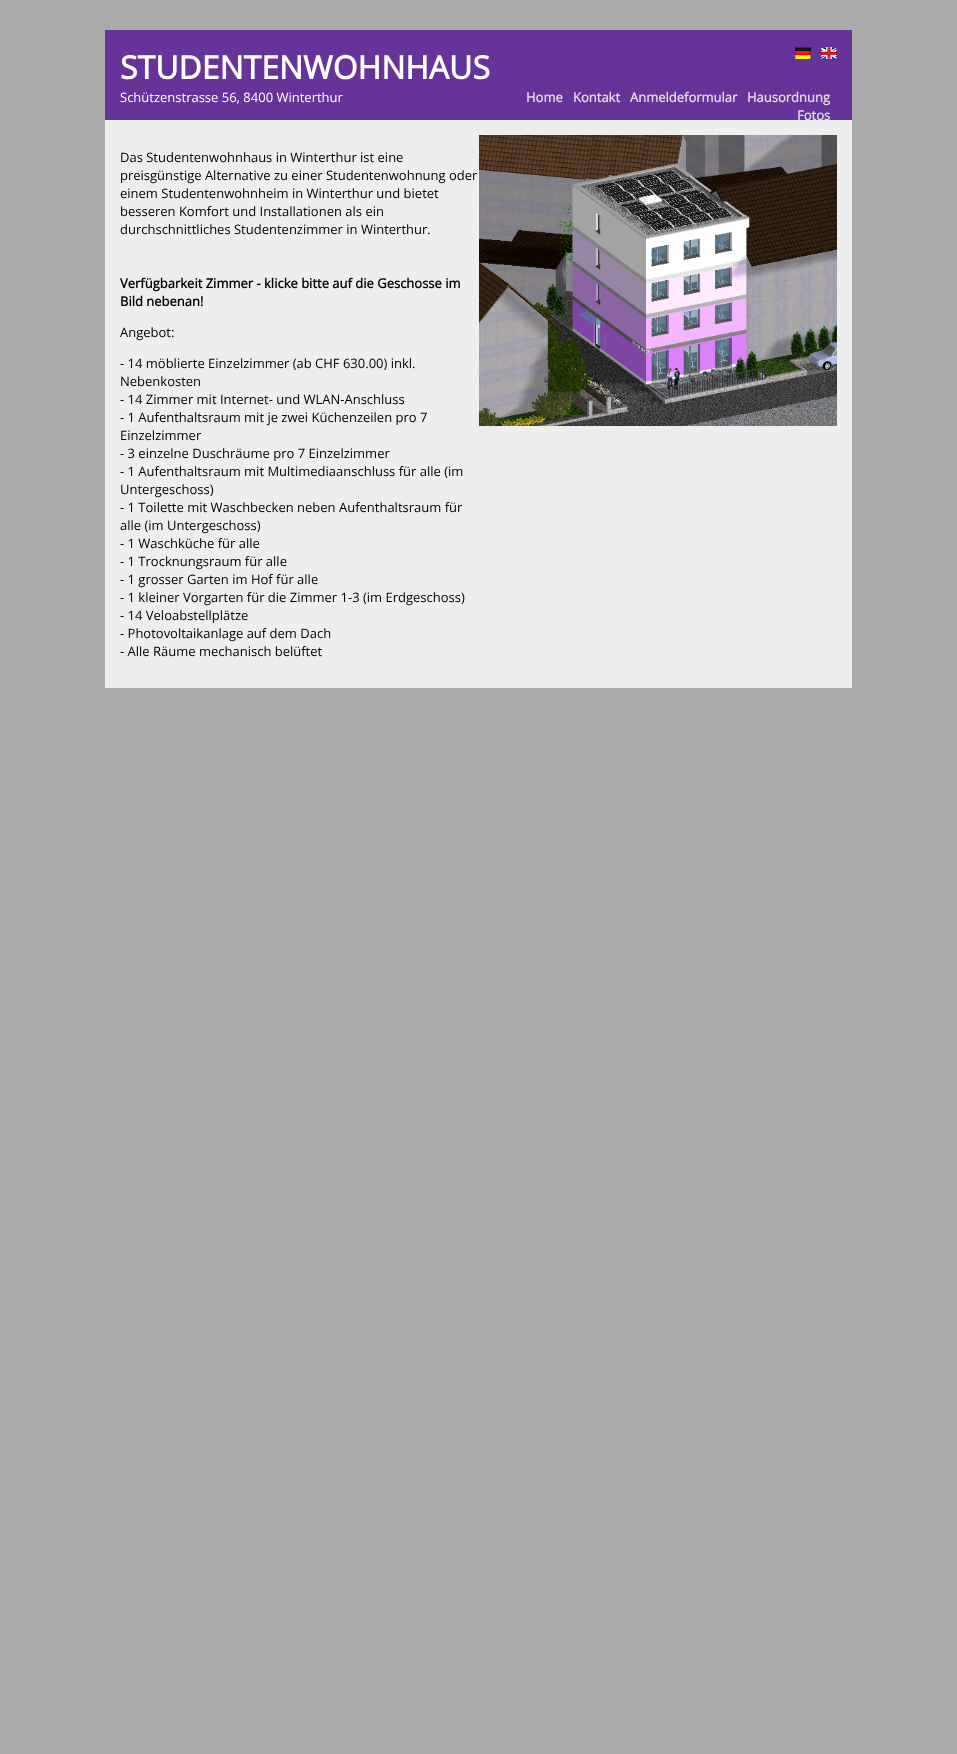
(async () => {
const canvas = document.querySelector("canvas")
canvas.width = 957
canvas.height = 1754
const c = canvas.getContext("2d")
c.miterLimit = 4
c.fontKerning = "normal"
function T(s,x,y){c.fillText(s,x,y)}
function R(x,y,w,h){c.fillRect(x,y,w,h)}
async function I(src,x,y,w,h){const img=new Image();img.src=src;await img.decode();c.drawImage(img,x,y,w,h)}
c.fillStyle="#aaa"
R(0,0,957,1754)
c.fillStyle="#639"
R(105,30,747,90)
await I("1.png",795,46,16,14)
await I("2.png",821,47,16,13)
c.font="bold 32px Open Sans"
c.fillStyle="#fff"
T("STUDENTENWOHNHAUS",120,79)
c.font="13px Open Sans"
T("Schützenstrasse 56, 8400 Winterthur",120,102)
c.font="bold 13px Open Sans"
c.fillStyle="#ddd"
T("Home",526,102)
T("Kontakt",573,102)
T("Anmeldeformular",630,102)
T("Hausordnung",747,102)
c.fillStyle="#eee"
R(105,120,747,568)
c.fillStyle="#ddd"
T("Fotos",797,120)
c.font="13px Open Sans"
c.fillStyle="#000"
T("Das Studentenwohnhaus in Winterthur ist eine",120,162)
T("preisgünstige Alternative zu einer Studentenwohnung oder",120,180)
T("einem Studentenwohnheim in Winterthur und bietet",120,198)
T("besseren Komfort und Installationen als ein",120,216)
T("durchschnittliches Studentenzimmer in Winterthur.",120,234)
c.font="bold 13px Open Sans"
T("Verfügbarkeit Zimmer - klicke bitte auf die Geschosse im",120,288)
T("Bild nebenan!",120,306)
c.font="13px Open Sans"
T("Angebot:",120,337)
T("- 14 möblierte Einzelzimmer (ab CHF 630.00) inkl.",120,368)
T("Nebenkosten",120,386)
T("- 14 Zimmer mit Internet- und WLAN-Anschluss",120,404)
T("- 1 Aufenthaltsraum mit je zwei Küchenzeilen pro 7",120,422)
T("Einzelzimmer",120,440)
T("- 3 einzelne Duschräume pro 7 Einzelzimmer",120,458)
T("- 1 Aufenthaltsraum mit Multimediaanschluss für alle (im",120,476)
T("Untergeschoss)",120,494)
T("- 1 Toilette mit Waschbecken neben Aufenthaltsraum für",120,512)
T("alle (im Untergeschoss)",120,530)
T("- 1 Waschküche für alle",120,548)
T("- 1 Trocknungsraum für alle",120,566)
T("- 1 grosser Garten im Hof für alle",120,584)
T("- 1 kleiner Vorgarten für die Zimmer 1-3 (im Erdgeschoss)",120,602)
T("- 14 Veloabstellplätze",120,620)
T("- Photovoltaikanlage auf dem Dach",120,638)
T("- Alle Räume mechanisch belüftet",120,656)
await I("3.png",479,135,358,291)
})()
